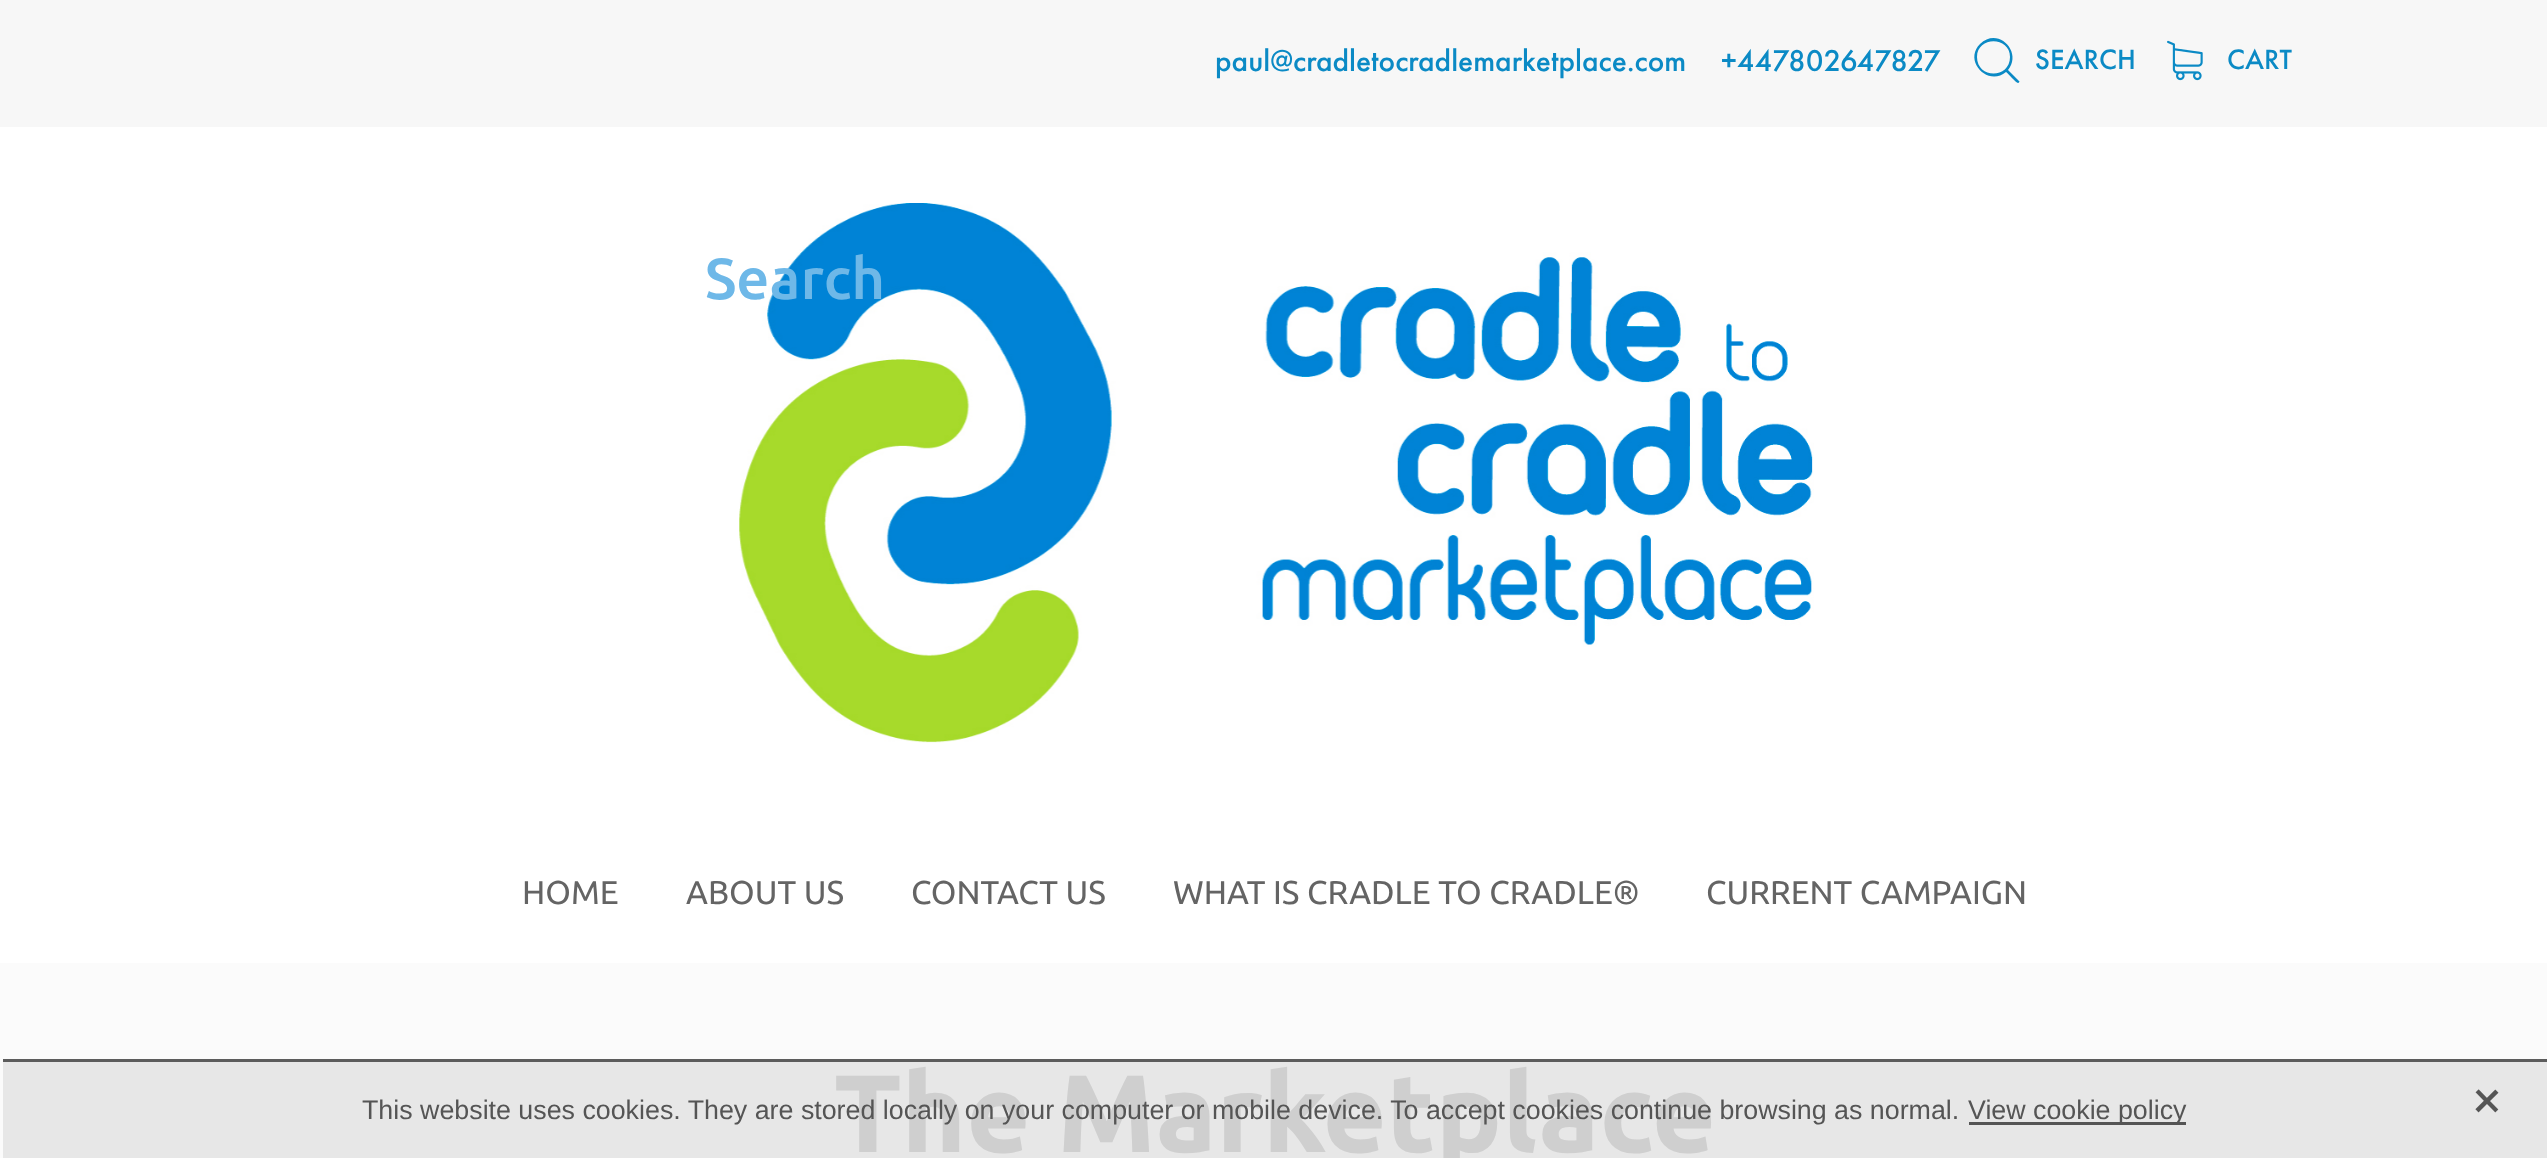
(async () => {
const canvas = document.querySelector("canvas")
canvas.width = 2547
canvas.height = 1158
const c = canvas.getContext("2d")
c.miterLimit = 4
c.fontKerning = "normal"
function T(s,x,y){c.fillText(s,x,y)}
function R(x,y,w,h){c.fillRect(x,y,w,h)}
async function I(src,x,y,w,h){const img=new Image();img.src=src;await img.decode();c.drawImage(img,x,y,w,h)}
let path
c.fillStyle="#fff"
R(0,0,2547,1158)
c.fillStyle="#f7f7f7"
R(0,0,2547,127)
c.font="500 31.25px Futura PT"
c.fillStyle="#0b8ac5"
T("paul@cradletocradlemarketplace.com",1215,71)
T("+447802647827",1721,71)
path = new Path2D("M2019 81l-11-11c15-18-10-44-28-26c-17 17 8 43 26 28c2 1 10 11 12 11c1 0 2-2 1-2zm-42-24c0-21 33-21 33 0c0 22-33 22-33 0z")
c.fill(path)
c.font="500 29px Futura PT"
T("SEARCH",2035,69)
await I("1.png",2167,40,36,41)
T("CART",2227,69)
await I("2.png",739,203,1075,540)
c.font="33px Ubuntu"
c.fillStyle="#646464"
T("HOME",522,904)
T("ABOUT US",686,904)
T("CONTACT US",911,904)
T("WHAT IS CRADLE TO CRADLE®",1173,904)
T("CURRENT CAMPAIGN",1706,904)
c.fillStyle="#fbfbfb"
R(0,963,2547,195)
c.fillStyle="#e7e7e7"
R(3,1062,2544,96)
c.font="bold 110px Ubuntu"
c.fillStyle="#cfcfcf"
T("The Marketplace",834,1152)
c.font="500 58px Ubuntu"
c.fillStyle="#6eb8e8"
T("Search",705,299)
c.fillStyle="#5c5c5c"
R(3,1059,2544,3)
c.font="26.8px Liberation Sans"
c.fillStyle="#555"
T("This website uses cookies. They are stored locally on your computer or mobile device. To accept cookies continue browsing as normal.",362,1119)
R(1969,1122,217,3)
T("View cookie policy",1968,1119)
await I("3.png",2475,1089,24,24)
})()
